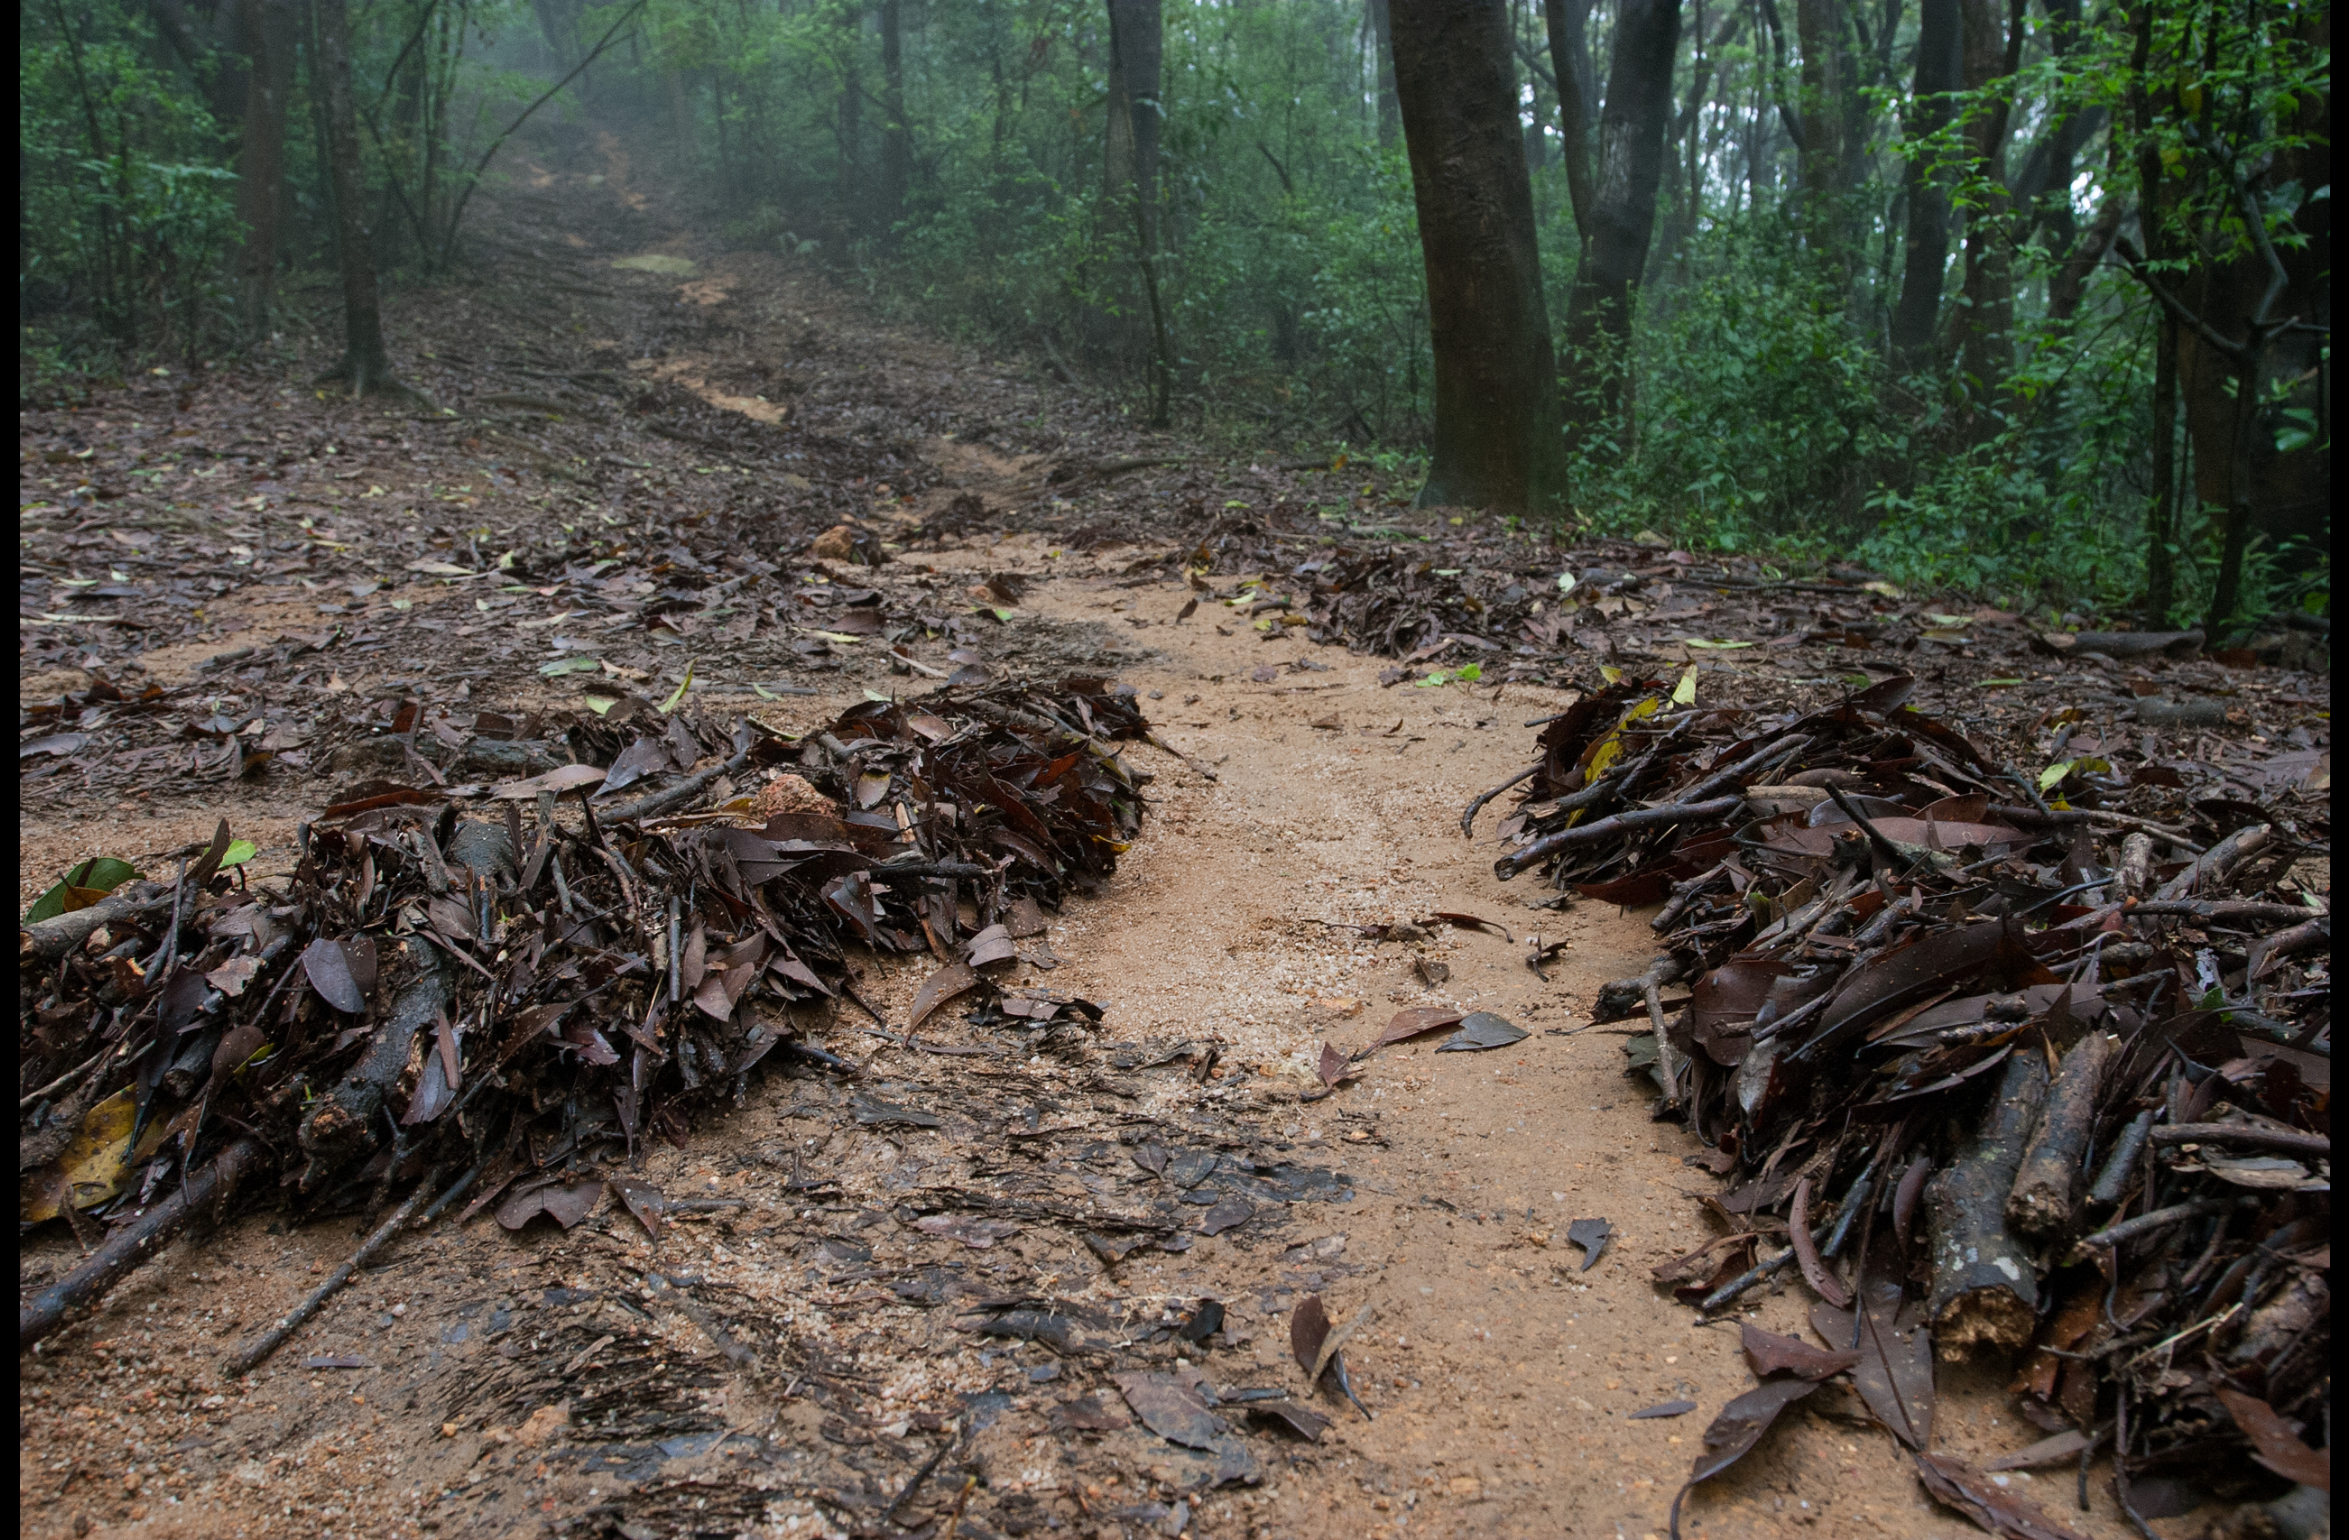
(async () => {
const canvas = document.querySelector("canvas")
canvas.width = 2349
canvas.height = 1540
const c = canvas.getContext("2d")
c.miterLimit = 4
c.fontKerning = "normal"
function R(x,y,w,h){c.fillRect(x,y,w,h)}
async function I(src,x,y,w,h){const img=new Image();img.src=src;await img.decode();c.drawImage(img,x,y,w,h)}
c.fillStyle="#000"
R(0,0,2349,1540)
await I("1.png",20,0,2310,1540)
})()
